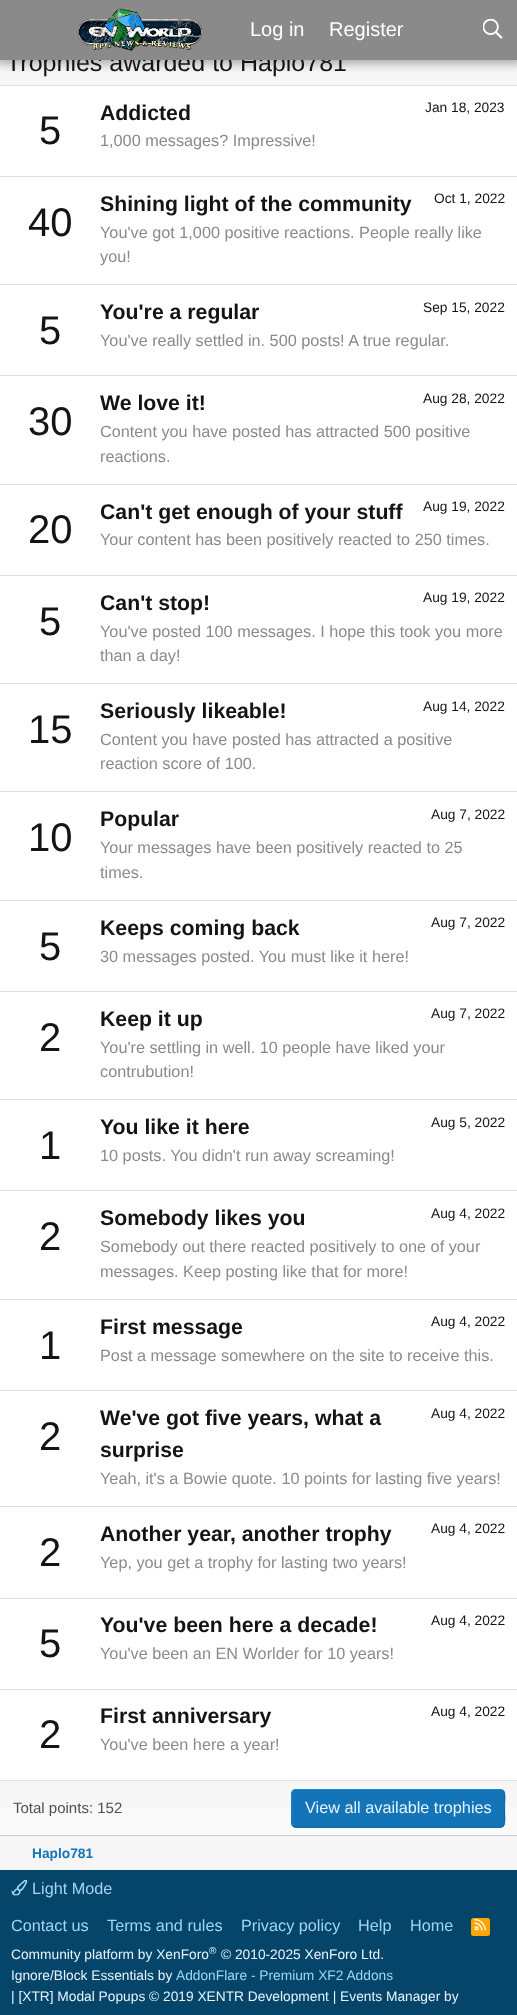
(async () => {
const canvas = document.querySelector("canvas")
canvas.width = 517
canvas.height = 2015
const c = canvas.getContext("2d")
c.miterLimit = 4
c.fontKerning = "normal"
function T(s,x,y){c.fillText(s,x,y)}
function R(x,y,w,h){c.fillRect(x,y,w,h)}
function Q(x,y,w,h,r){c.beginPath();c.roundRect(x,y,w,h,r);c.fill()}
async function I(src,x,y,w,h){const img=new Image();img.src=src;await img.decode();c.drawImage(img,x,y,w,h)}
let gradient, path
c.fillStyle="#f6f6f6"
R(0,0,517,2015)
c.fillStyle="#0000004d"
c.filter="blur(5px)"
c.beginPath()
c.rect(-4,-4,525,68)
c.fill()
c.filter="none"
c.font="25px Liberation Sans"
c.fillStyle="#141414"
T("Trophies awarded to Haplo781",6,71)
c.fillStyle="#8a8a8a"
R(0,0,517,60)
await I("1.png",77,8,125,43)
c.font="20px Liberation Sans"
c.fillStyle="#fff"
T("Log in",250,36)
T("Register",329,36)
await I("2.png",483,19,20,20)
R(0,86,517,1694)
c.fillStyle="#e0e0e0"
R(0,85,517,1)
c.fillStyle="#ccc"
R(0,1835,517,1)
c.font="40px Liberation Sans"
c.fillStyle="#141414"
T("5",39,144)
c.font="bold 21.25px Liberation Sans"
T("Addicted",100,120)
c.font="13.75px Liberation Sans"
T("Jan 18, 2023",425,112)
c.font="16.25px Liberation Sans"
c.fillStyle="#8a8a8a"
T("1,000 messages? Impressive!",100,146)
c.fillStyle="#e0e0e0"
R(0,176,517,1)
c.font="40px Liberation Sans"
c.fillStyle="#141414"
T("40",28,236)
c.font="bold 21.25px Liberation Sans"
T("Shining light of the community",100,211)
c.font="13.75px Liberation Sans"
T("Oct 1, 2022",434,203)
c.font="16.25px Liberation Sans"
c.fillStyle="#8a8a8a"
T("You've got 1,000 positive reactions. People really like",100,238)
T("you!",100,262)
c.fillStyle="#e0e0e0"
R(0,284,517,1)
c.font="40px Liberation Sans"
c.fillStyle="#141414"
T("5",39,344)
c.font="bold 21.25px Liberation Sans"
T("You're a regular",100,319)
c.font="13.75px Liberation Sans"
T("Sep 15, 2022",423,312)
c.font="16.25px Liberation Sans"
c.fillStyle="#8a8a8a"
T("You've really settled in. 500 posts! A true regular.",100,346)
c.fillStyle="#e0e0e0"
R(0,375,517,1)
c.font="40px Liberation Sans"
c.fillStyle="#141414"
T("30",28,435)
c.font="bold 21.25px Liberation Sans"
T("We love it!",100,410)
c.font="13.75px Liberation Sans"
T("Aug 28, 2022",423,403)
c.font="16.25px Liberation Sans"
c.fillStyle="#8a8a8a"
T("Content you have posted has attracted 500 positive",100,437)
T("reactions.",100,462)
c.fillStyle="#e0e0e0"
R(0,484,517,1)
c.font="40px Liberation Sans"
c.fillStyle="#141414"
T("20",28,543)
c.font="bold 21.25px Liberation Sans"
T("Can't get enough of your stuff",100,519)
c.font="13.75px Liberation Sans"
T("Aug 19, 2022",423,511)
c.font="16.25px Liberation Sans"
c.fillStyle="#8a8a8a"
T("Your content has been positively reacted to 250 times.",100,545)
c.fillStyle="#e0e0e0"
R(0,575,517,1)
c.font="40px Liberation Sans"
c.fillStyle="#141414"
T("5",39,635)
c.font="bold 21.25px Liberation Sans"
T("Can't stop!",100,610)
c.font="13.75px Liberation Sans"
T("Aug 19, 2022",423,602)
c.font="16.25px Liberation Sans"
c.fillStyle="#8a8a8a"
T("You've posted 100 messages. I hope this took you more",100,637)
T("than a day!",100,661)
c.fillStyle="#e0e0e0"
R(0,683,517,1)
c.font="40px Liberation Sans"
c.fillStyle="#141414"
T("15",28,743)
c.font="bold 21.25px Liberation Sans"
T("Seriously likeable!",100,718)
c.font="13.75px Liberation Sans"
T("Aug 14, 2022",423,711)
c.font="16.25px Liberation Sans"
c.fillStyle="#8a8a8a"
T("Content you have posted has attracted a positive",100,745)
T("reaction score of 100.",100,769)
c.fillStyle="#e0e0e0"
R(0,791,517,1)
c.font="40px Liberation Sans"
c.fillStyle="#141414"
T("10",28,851)
c.font="bold 21.25px Liberation Sans"
T("Popular",100,826)
c.font="13.75px Liberation Sans"
T("Aug 7, 2022",431,819)
c.font="16.25px Liberation Sans"
c.fillStyle="#8a8a8a"
T("Your messages have been positively reacted to 25",100,853)
T("times.",100,878)
c.fillStyle="#e0e0e0"
R(0,900,517,1)
c.font="40px Liberation Sans"
c.fillStyle="#141414"
T("5",39,960)
c.font="bold 21.25px Liberation Sans"
T("Keeps coming back",100,935)
c.font="13.75px Liberation Sans"
T("Aug 7, 2022",431,927)
c.font="16.25px Liberation Sans"
c.fillStyle="#8a8a8a"
T("30 messages posted. You must like it here!",100,962)
c.fillStyle="#e0e0e0"
R(0,991,517,1)
c.font="40px Liberation Sans"
c.fillStyle="#141414"
T("2",39,1051)
c.font="bold 21.25px Liberation Sans"
T("Keep it up",100,1026)
c.font="13.75px Liberation Sans"
T("Aug 7, 2022",431,1018)
c.font="16.25px Liberation Sans"
c.fillStyle="#8a8a8a"
T("You're settling in well. 10 people have liked your",100,1053)
T("contrubution!",100,1077)
c.fillStyle="#e0e0e0"
R(0,1099,517,1)
c.font="40px Liberation Sans"
c.fillStyle="#141414"
T("1",39,1159)
c.font="bold 21.25px Liberation Sans"
T("You like it here",100,1134)
c.font="13.75px Liberation Sans"
T("Aug 5, 2022",431,1127)
c.font="16.25px Liberation Sans"
c.fillStyle="#8a8a8a"
T("10 posts. You didn't run away screaming!",100,1161)
c.fillStyle="#e0e0e0"
R(0,1190,517,1)
c.font="40px Liberation Sans"
c.fillStyle="#141414"
T("2",39,1250)
c.font="bold 21.25px Liberation Sans"
T("Somebody likes you",100,1225)
c.font="13.75px Liberation Sans"
T("Aug 4, 2022",431,1218)
c.font="16.25px Liberation Sans"
c.fillStyle="#8a8a8a"
T("Somebody out there reacted positively to one of your",100,1252)
T("messages. Keep posting like that for more!",100,1277)
c.fillStyle="#e0e0e0"
R(0,1299,517,1)
c.font="40px Liberation Sans"
c.fillStyle="#141414"
T("1",39,1359)
c.font="bold 21.25px Liberation Sans"
T("First message",100,1334)
c.font="13.75px Liberation Sans"
T("Aug 4, 2022",431,1326)
c.font="16.25px Liberation Sans"
c.fillStyle="#8a8a8a"
T("Post a message somewhere on the site to receive this.",100,1361)
c.fillStyle="#e0e0e0"
R(0,1390,517,1)
c.font="40px Liberation Sans"
c.fillStyle="#141414"
T("2",39,1450)
c.font="bold 21.25px Liberation Sans"
T("We've got five years, what a",100,1425)
T("surprise",100,1457)
c.font="13.75px Liberation Sans"
T("Aug 4, 2022",431,1418)
c.font="16.25px Liberation Sans"
c.fillStyle="#8a8a8a"
T("Yeah, it's a Bowie quote. 10 points for lasting five years!",100,1484)
c.fillStyle="#e0e0e0"
R(0,1506,517,1)
c.font="40px Liberation Sans"
c.fillStyle="#141414"
T("2",39,1566)
c.font="bold 21.25px Liberation Sans"
T("Another year, another trophy",100,1541)
c.font="13.75px Liberation Sans"
T("Aug 4, 2022",431,1533)
c.font="16.25px Liberation Sans"
c.fillStyle="#8a8a8a"
T("Yep, you get a trophy for lasting two years!",100,1568)
c.fillStyle="#e0e0e0"
R(0,1598,517,1)
c.font="40px Liberation Sans"
c.fillStyle="#141414"
T("5",39,1657)
c.font="bold 21.25px Liberation Sans"
T("You've been here a decade!",100,1632)
c.font="13.75px Liberation Sans"
T("Aug 4, 2022",431,1625)
c.font="16.25px Liberation Sans"
c.fillStyle="#8a8a8a"
T("You've been an EN Worlder for 10 years!",100,1659)
c.fillStyle="#e0e0e0"
R(0,1689,517,1)
c.font="40px Liberation Sans"
c.fillStyle="#141414"
T("2",39,1748)
c.font="bold 21.25px Liberation Sans"
T("First anniversary",100,1723)
c.font="13.75px Liberation Sans"
T("Aug 4, 2022",431,1716)
c.font="16.25px Liberation Sans"
c.fillStyle="#8a8a8a"
T("You've been here a year!",100,1750)
gradient = c.createLinearGradient(259,1781,259,1835)
gradient.addColorStop(0,"#f6f6f6")
gradient.addColorStop(1,"#fbfbfb")
c.fillStyle = gradient
R(0,1808,517,27)
c.fillStyle="#e0e0e0"
R(0,1780,517,1)
c.font="15px Liberation Sans"
c.fillStyle="#4f4f4f"
T("Total points: 152",13,1813)
c.fillStyle="#1474b8"
Q(291,1789,214,39,5)
path = new Path2D("M503 1790.5c3 3 1.5 9.5 1.5 13v9.5c0 3 2 14-4.5 14h-204l-3-1.5")
c.strokeStyle="#1265a1"
c.lineWidth=1.2
c.stroke(path)
path = new Path2D("M293 1825.5c-2.5-2.5-1-9.5-1-12.5v-9.5c0-3.5-2.5-14 4-14h204l3 1")
c.strokeStyle="#1782cf"
c.stroke(path)
c.font="16.25px Liberation Sans"
c.fillStyle="#e8f4fc"
T("View all available trophies",305,1813)
c.font="bold 13.75px Liberation Sans"
c.fillStyle="#1474b8"
T("Haplo781",32,1858)
c.fillStyle="#044569"
R(0,1870,517,145)
await I("3.png",11,1879,17,17)
c.font="16.25px Liberation Sans"
c.fillStyle="#a3d4f5"
T("Light Mode",32,1894)
T("Contact us",11,1931)
T("Terms and rules",107,1931)
T("Privacy policy",241,1931)
T("Help",358,1931)
T("Home",410,1931)
c.fillStyle="#ffa500"
Q(471,1918,19,18,2.5)
await I("4.png",474,1919,12,12)
c.font="13.75px Liberation Sans"
c.fillStyle="#e8f4fc"
T("Community platform by XenForo",11,1959)
c.font="10px Liberation Sans"
T("®",209,1954)
c.font="13.75px Liberation Sans"
T("© 2010-2025 XenForo Ltd.",221,1959)
T("Ignore/Block Essentials by",11,1980)
c.fillStyle="#a3d4f5"
T("AddonFlare - Premium XF2 Addons",176,1980)
c.fillStyle="#e8f4fc"
T("| [XTR] Modal Popups © 2019 XENTR Development | Events Manager by",11,2001)
})()
